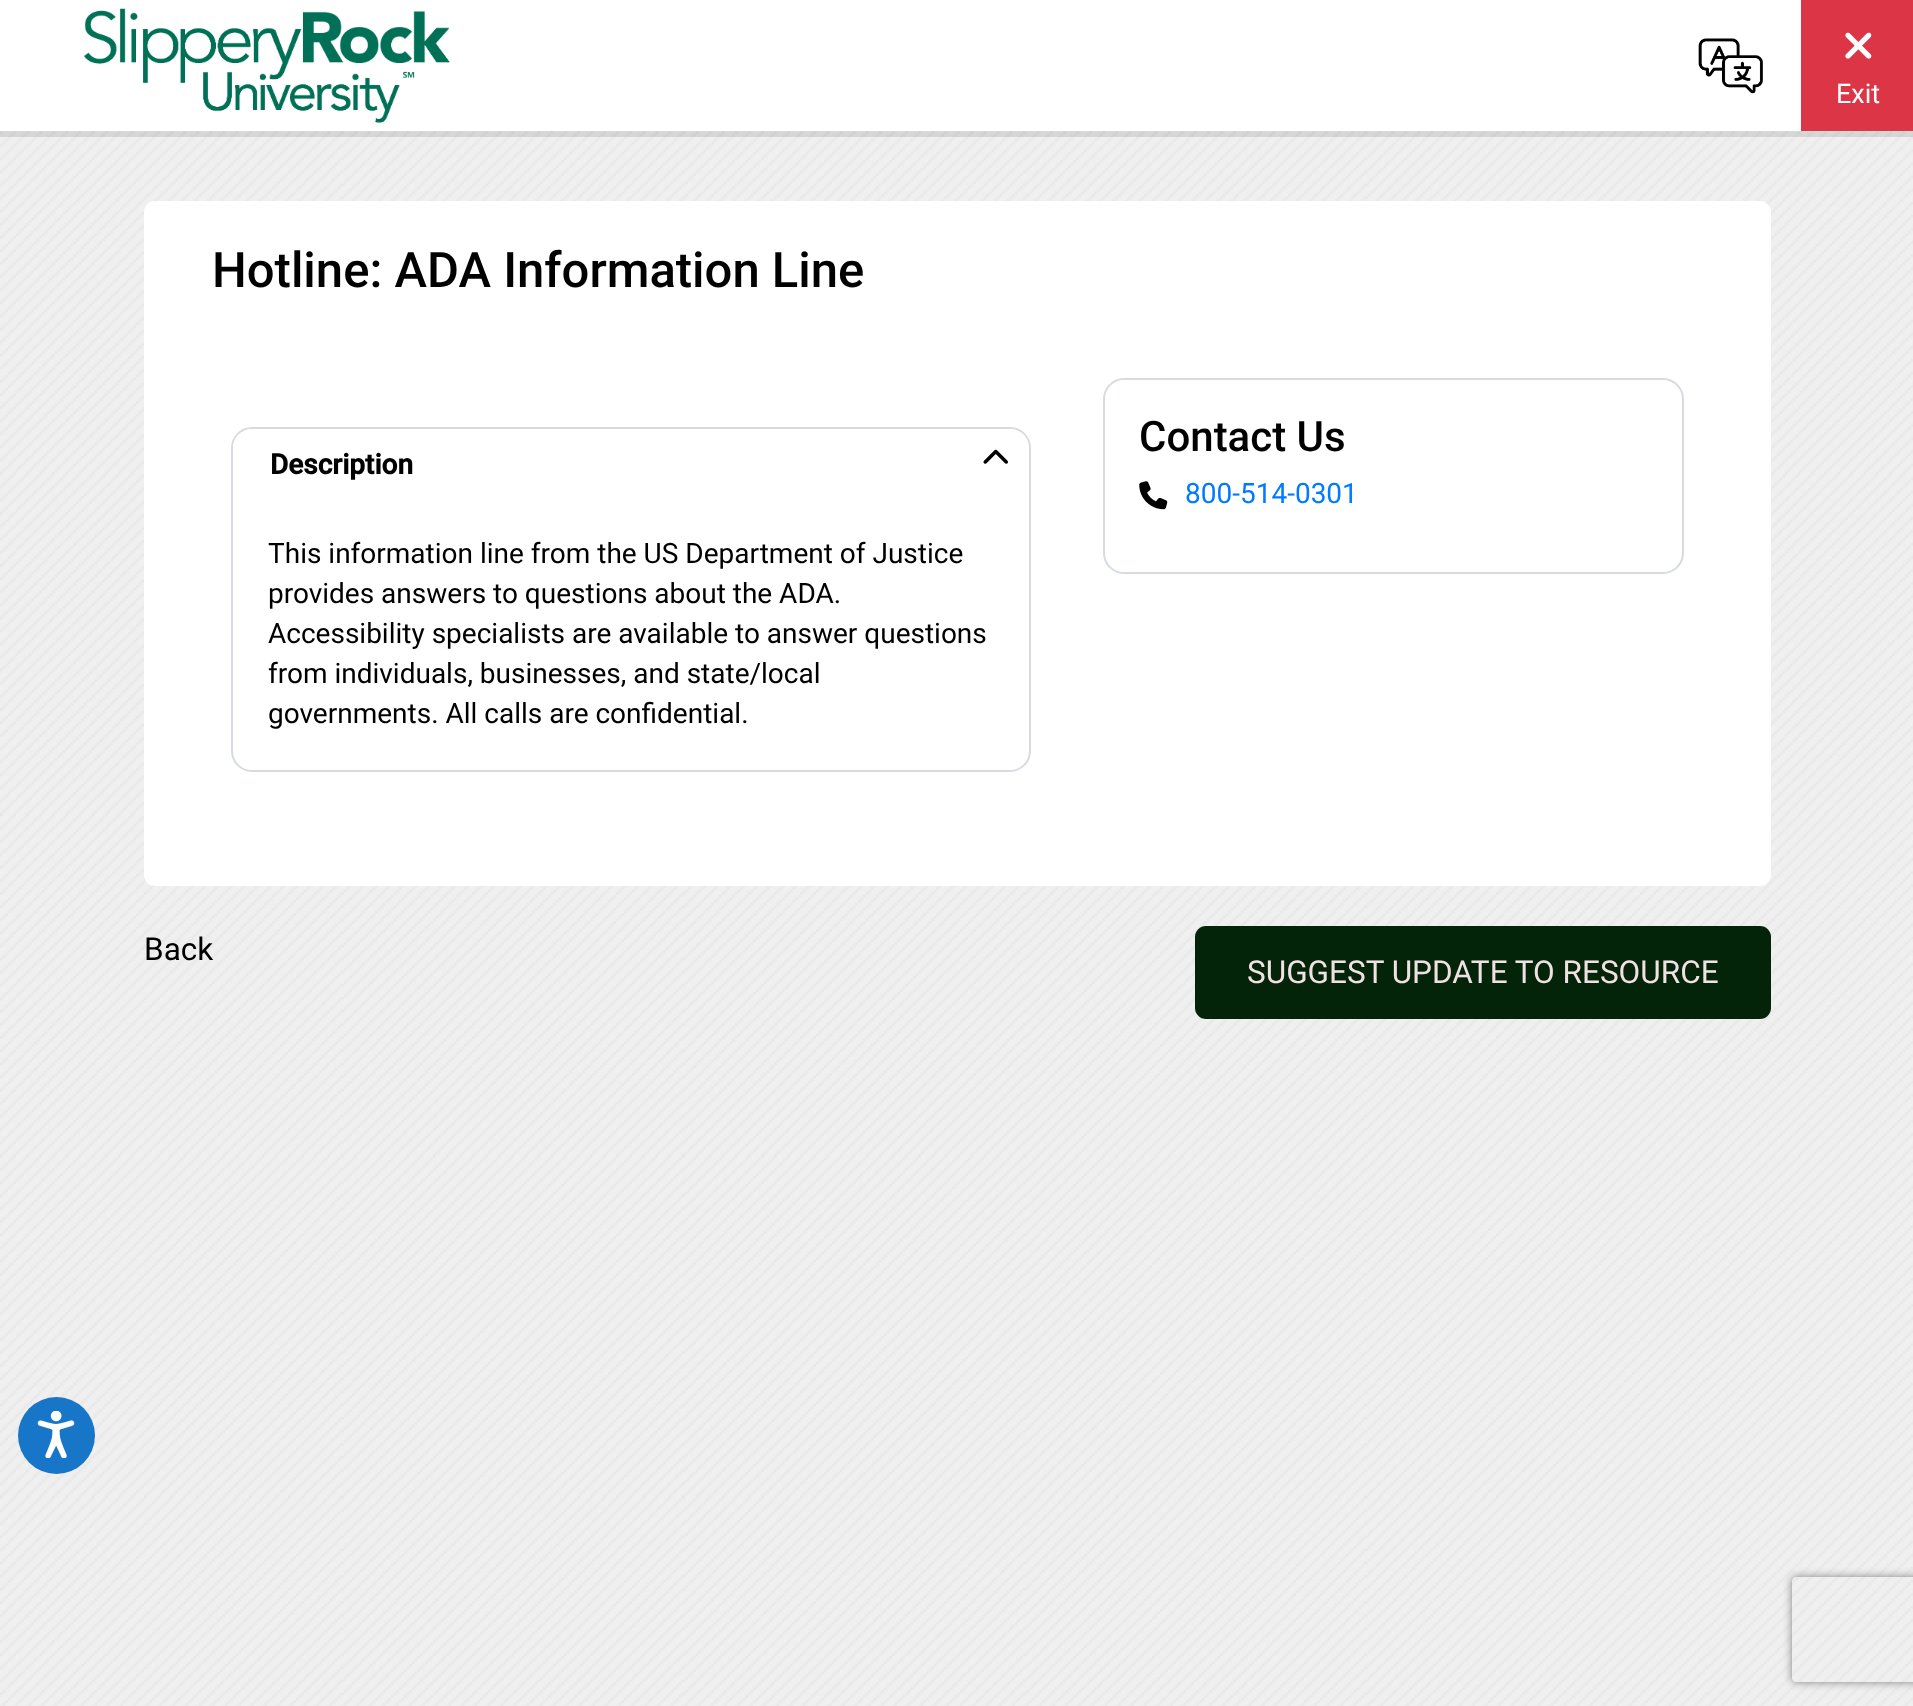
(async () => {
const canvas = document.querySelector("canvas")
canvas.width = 1913
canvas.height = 1706
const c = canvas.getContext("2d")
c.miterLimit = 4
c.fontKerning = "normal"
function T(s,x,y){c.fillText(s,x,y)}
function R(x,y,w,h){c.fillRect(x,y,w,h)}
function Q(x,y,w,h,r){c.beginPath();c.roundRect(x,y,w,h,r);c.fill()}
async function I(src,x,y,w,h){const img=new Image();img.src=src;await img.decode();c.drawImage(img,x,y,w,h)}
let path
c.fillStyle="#fff"
R(0,0,1913,1706)
await I("4.png",0,131,1913,1575)
c.fillStyle="#0000001a"
path = new Path2D("M0 131v6h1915v-132h-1v126z")
c.fill(path)
await I("1.png",84,8,366,115)
await I("2.png",1698,38,65,56)
c.fillStyle="#dc3545"
R(1801,0,112,131)
await I("3.png",1845,32,27,27)
c.font="27px Roboto"
c.fillStyle="#fff"
T("Exit",1836,103)
Q(144,201,1627,685,11)
c.font="500 49px Roboto"
c.fillStyle="#000"
T("Hotline: ADA Information Line",212,287)
c.beginPath()
c.roundRect(232,428,798,343,20)
c.strokeStyle="#d7dbe0"
c.lineWidth=2
c.stroke()
c.fillStyle="#fff"
c.beginPath()
c.roundRect(233,429,796,73,[19,19,0,0])
c.fill()
c.font="bold 28px Roboto"
c.fillStyle="#000"
T("Description",270,474)
await I("5.png",983,449,25,15)
c.font="28px Roboto"
T("This information line from the US Department of Justice",268,563)
T("provides answers to questions about the ADA.",268,603)
T("Accessibility specialists are available to answer questions",268,643)
T("from individuals, businesses, and state/local",268,683)
T("governments. All calls are confidential.",268,723)
c.beginPath()
c.roundRect(1104,379,579,194,20)
c.stroke()
c.font="500 42px Roboto"
T("Contact Us",1139,451)
await I("6.png",1139,481,29,29)
c.font="28px Roboto"
c.fillStyle="#007bff"
T("800-514-0301",1185,503)
c.font="31.5px Roboto"
c.fillStyle="#000"
T("Back",144,960)
c.fillStyle="#032408"
Q(1195,926,576,93,11)
c.fillStyle="#f0e2e2"
T("SUGGEST UPDATE TO RESOURCE",1247,983)
c.fillStyle="#1876c9"
c.beginPath()
c.arc(56.5,1435.5,38.5,0,7)
c.fill()
await I("7.png",37,1411,38,47)
c.save()
path = new Path2D("M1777 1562h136v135h-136zm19 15h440c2 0 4 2 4 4v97c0 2-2 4-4 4h-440c-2 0-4-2-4-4v-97c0-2 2-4 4-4z")
c.clip(path,"evenodd")
c.fillStyle="#808080"
c.filter="blur(4.5px)"
c.beginPath()
c.roundRect(1792,1577,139,105,4)
c.fill()
c.filter="none"
c.restore()
})()
